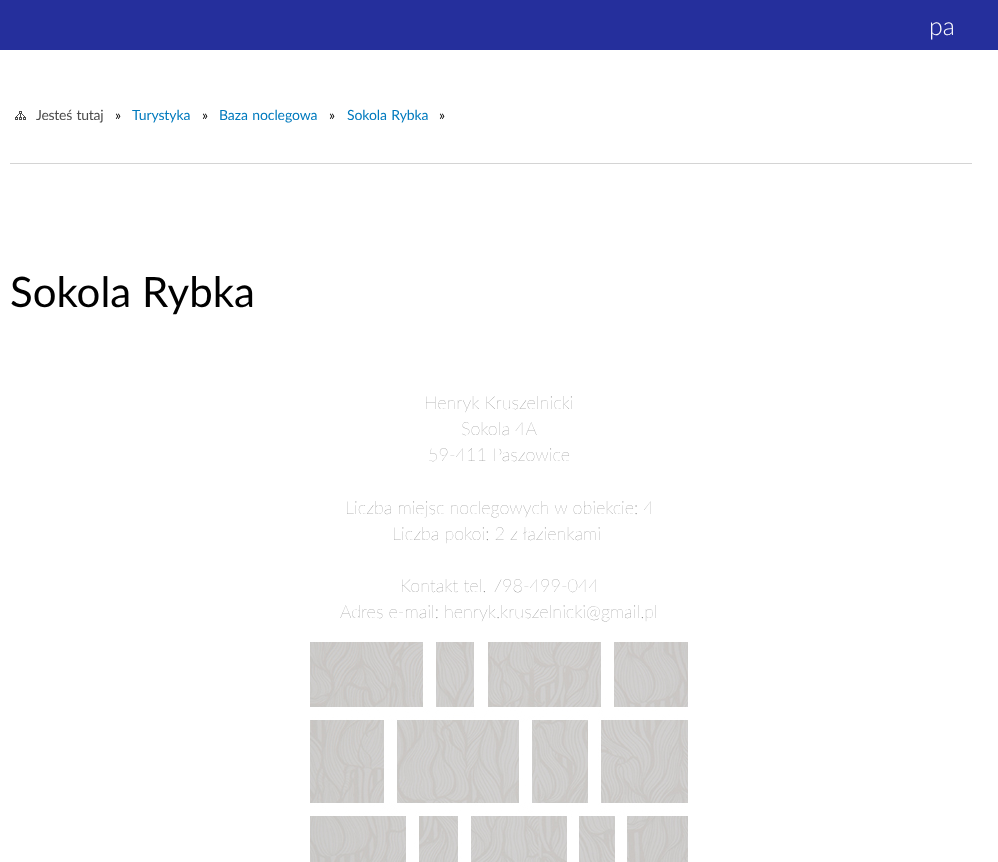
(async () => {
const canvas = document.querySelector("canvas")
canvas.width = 998
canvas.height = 862
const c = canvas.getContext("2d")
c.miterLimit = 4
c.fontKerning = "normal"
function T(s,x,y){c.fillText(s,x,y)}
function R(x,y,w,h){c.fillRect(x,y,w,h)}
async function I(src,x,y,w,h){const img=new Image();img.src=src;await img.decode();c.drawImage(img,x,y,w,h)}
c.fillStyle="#fff"
R(0,0,998,862)
c.fillStyle="#252f9c"
R(0,0,998,50)
c.font="300 25px Lato"
c.fillStyle="#fff"
T("pa",929,35)
await I("1.png",15,111,11,9)
c.letterSpacing="-0.25px"
c.wordSpacing="1px"
c.font="14px Lato"
c.fillStyle="#4c4c4c"
T("Jesteś tutaj",36,120)
c.wordSpacing="0px"
c.fillStyle="#000"
T("»",115,120)
c.letterSpacing="-0.1px"
c.fillStyle="#007abe"
T("Turystyka",132,120)
c.fillStyle="#000"
T("»",202,120)
c.wordSpacing="1px"
c.fillStyle="#007abe"
T("Baza noclegowa",219,120)
c.wordSpacing="0px"
c.fillStyle="#000"
T("»",329,120)
c.wordSpacing="1px"
c.fillStyle="#007abe"
T("Sokola Rybka",347,120)
c.wordSpacing="0px"
c.fillStyle="#000"
T("»",439,120)
c.fillStyle="#d4d4d4"
R(10,163,962,1)
c.letterSpacing="0px"
c.font="42px Lato"
c.fillStyle="#000"
T("Sokola Rybka",10,307)
c.font="200 18px Lato"
c.fillStyle="#727272"
T("Henryk Kruszelnicki",424,409)
T("Sokola 4A",461,435)
T("59-411 Paszowice",428,461)
T("Liczba miejsc noclegowych w obiekcie: 4",345,514)
T("Liczba pokoi: 2 z łazienkami",392,540)
T("Kontakt tel. 798-499-044",400,592)
T("Adres e-mail: henryk.kruszelnicki@gmail.pl",340,618)
await I("2.png",310,642,378,220)
})()
